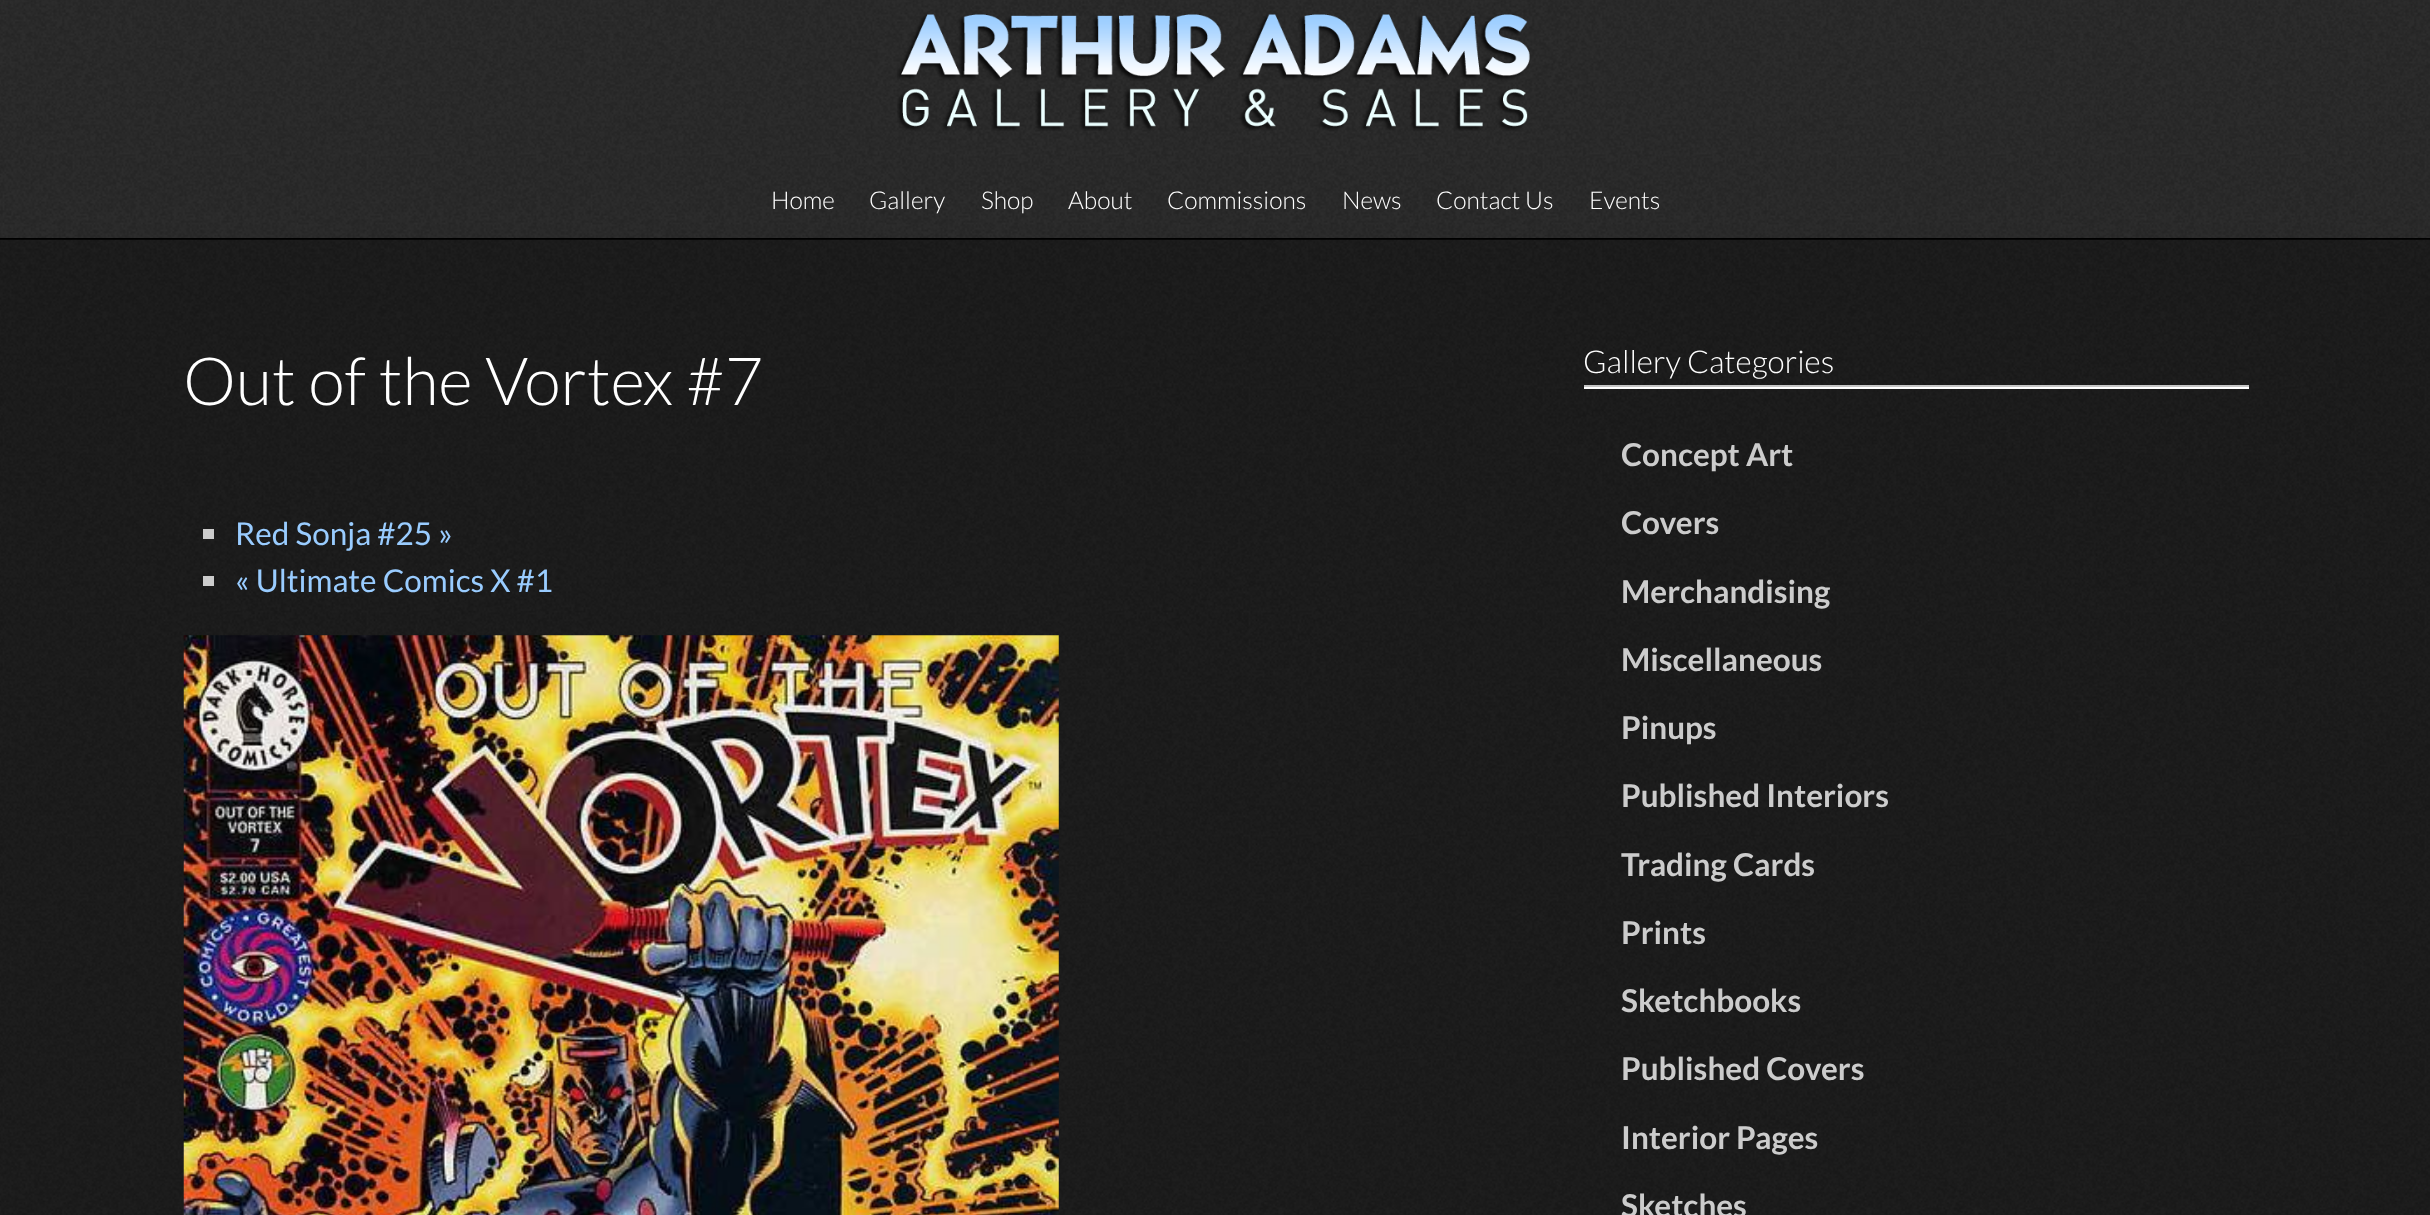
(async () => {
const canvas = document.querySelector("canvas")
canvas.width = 2430
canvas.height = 1215
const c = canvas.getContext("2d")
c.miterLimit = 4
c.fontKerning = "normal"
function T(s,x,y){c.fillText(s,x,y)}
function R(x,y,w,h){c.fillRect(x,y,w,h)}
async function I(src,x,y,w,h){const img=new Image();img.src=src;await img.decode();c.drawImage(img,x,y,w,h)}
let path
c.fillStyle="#fff"
R(0,0,2430,1215)
await I("1.png",0,0,2430,238)
c.fillStyle="#000"
R(0,238,2430,2)
await I("2.png",897,14,633,117)
c.font="300 24.5px Lato"
c.fillStyle="#fff"
T("Home",771,209)
T("Gallery",869,209)
T("Shop",981,209)
T("About",1068,209)
T("Commissions",1167,209)
T("News",1342,209)
T("Contact Us",1436,209)
T("Events",1589,209)
await I("3.png",0,239,2430,976)
c.font="300 66.5px Lato"
T("Out of the Vortex #7",183,405)
c.fillStyle="#ccc"
R(203,529,11,10)
c.font="31.5px Lato"
c.fillStyle="#9cf"
T("Red Sonja #25 »",235,545)
c.fillStyle="#ccc"
R(203,576,11,10)
c.fillStyle="#9cf"
T("« Ultimate Comics X #1",235,592)
await I("4.png",183,635,876,580)
c.fillStyle="#fff"
path = new Path2D("M1584 385v4h665v-41v37z")
c.fill(path)
c.fillStyle="#c5c5c5"
path = new Path2D("M1584 385v2h665v-40v38z")
c.fill(path)
c.font="300 31.5px Lato"
c.fillStyle="#fff"
T("Gallery Categories",1583,373)
c.font="bold 31.5px Lato"
c.fillStyle="#ccc"
T("Concept Art",1621,466)
T("Covers",1621,534)
T("Merchandising",1621,603)
T("Miscellaneous",1621,671)
T("Pinups",1621,739)
T("Published Interiors",1621,807)
T("Trading Cards",1621,876)
T("Prints",1621,944)
T("Sketchbooks",1621,1012)
T("Published Covers",1621,1080)
T("Interior Pages",1621,1149)
T("Sketches",1621,1217)
})()
